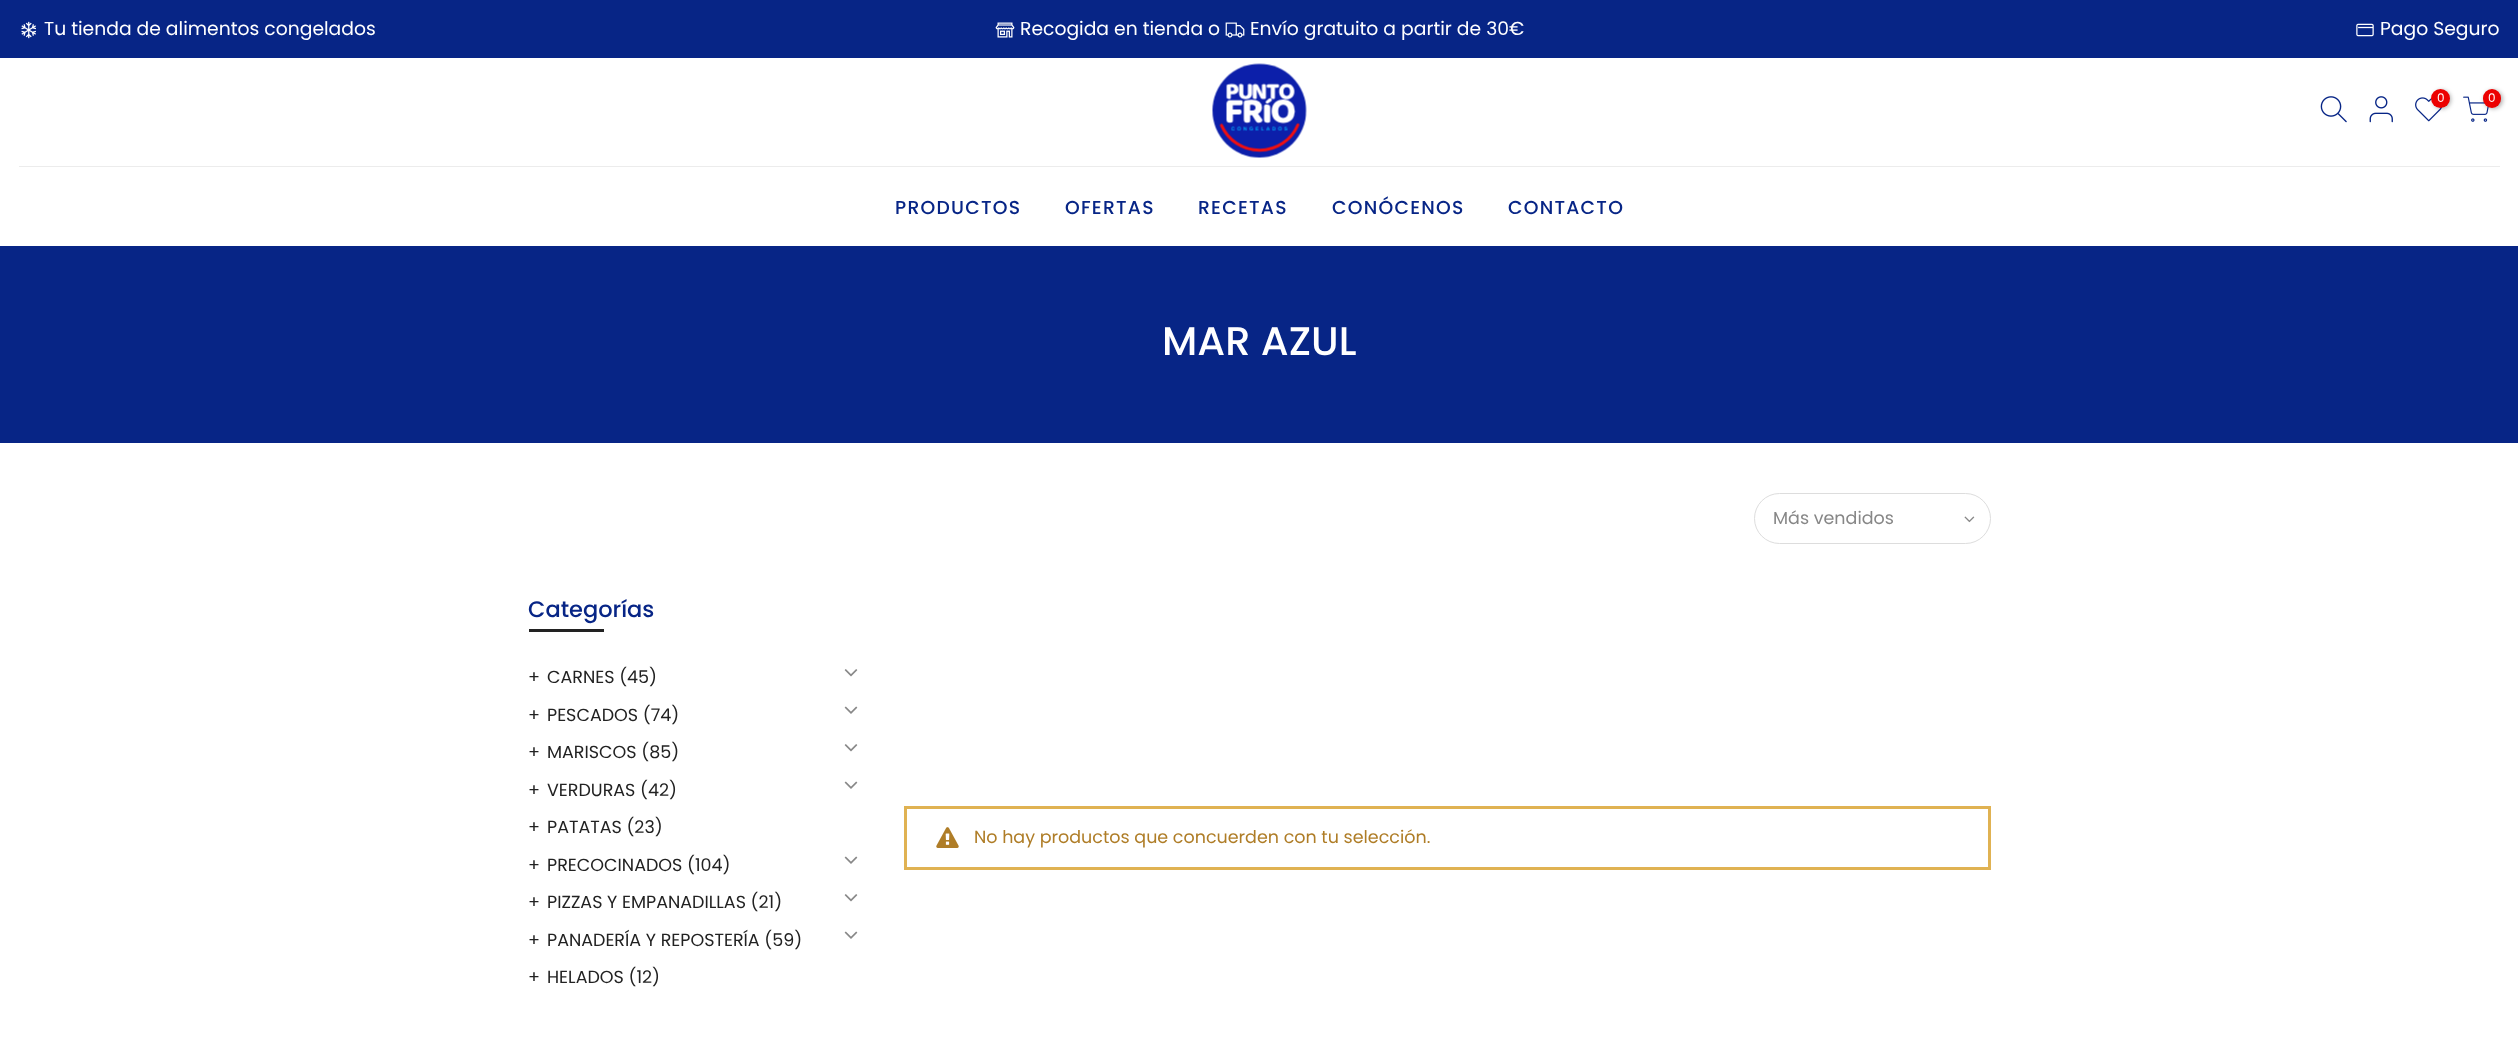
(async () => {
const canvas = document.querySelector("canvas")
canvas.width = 2518
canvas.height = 1042
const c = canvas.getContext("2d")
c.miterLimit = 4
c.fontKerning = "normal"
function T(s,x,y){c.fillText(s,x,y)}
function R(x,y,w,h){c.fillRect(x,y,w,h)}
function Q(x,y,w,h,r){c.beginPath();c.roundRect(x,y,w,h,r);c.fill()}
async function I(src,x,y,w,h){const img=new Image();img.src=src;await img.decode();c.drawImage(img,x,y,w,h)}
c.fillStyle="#fff"
R(0,0,2518,1042)
c.fillStyle="#072586"
R(0,0,2518,58)
await I("1.png",21,21,15,18)
c.font="18.75px Poppins"
c.fillStyle="#fff"
T("Tu tienda de alimentos congelados",44,35)
await I("2.png",995,22,20,16)
T("Recogida en tienda o",1020,35)
await I("3.png",1225,22,20,16)
T("Envío gratuito a partir de 30€",1250,35)
await I("4.png",2356,23,18,14)
T("Pago Seguro",2380,35)
await I("5.png",1212,63,95,95)
await I("6.png",2320,96,27,27)
await I("7.png",2369,96,24,27)
await I("8.png",2415,97,27,25)
c.fillStyle="#0000004d"
c.filter="blur(2px)"
c.beginPath()
c.roundRect(2433,90,18,19,9)
c.fill()
c.filter="none"
c.fillStyle="#ec0101"
c.beginPath()
c.arc(2440.5,98.5,9.5,0,7)
c.fill()
c.font="12px Poppins"
c.fillStyle="#fff"
T("0",2437,102)
await I("9.png",2463,96,26,26)
c.fillStyle="#0000004d"
c.filter="blur(2px)"
c.beginPath()
c.roundRect(2484,90,19,19,9.5)
c.fill()
c.filter="none"
c.fillStyle="#ec0101"
Q(2483,89,18,19,9)
c.fillStyle="#fff"
T("0",2488,102)
c.fillStyle="#ececec"
R(19,166,2481,1)
c.letterSpacing="1.25px"
c.font="500 18.75px Poppins"
c.fillStyle="#072586"
T("PRODUCTOS",895,214)
T("OFERTAS",1065,214)
T("RECETAS",1198,214)
T("CONÓCENOS",1332,214)
T("CONTACTO",1508,214)
R(0,246,2518,197)
c.letterSpacing="0px"
c.font="500 40px Poppins"
c.fillStyle="#fff"
T("MAR AZUL",1162,355)
c.beginPath()
c.roundRect(1754.5,493.5,236,50,25)
c.strokeStyle="#ddd"
c.stroke()
c.font="17.5px Poppins"
c.fillStyle="#878787"
T("Más vendidos",1773,524)
await I("10.png",1964,516,11,7)
c.font="500 22.5px Poppins"
c.fillStyle="#072586"
T("Categorías",528,617)
c.fillStyle="#222"
R(529,629,75,3)
c.font="17.5px Poppins"
T("+",528,683)
T("CARNES (45)",547,683)
await I("11.png",844,669,14,8)
T("+",528,721)
T("PESCADOS (74)",547,721)
await I("12.png",844,706,14,8)
T("+",528,758)
T("MARISCOS (85)",547,758)
await I("11.png",844,744,14,8)
T("+",528,796)
T("VERDURAS (42)",547,796)
await I("12.png",844,781,14,8)
T("+",528,833)
T("PATATAS (23)",547,833)
T("+",528,871)
T("PRECOCINADOS (104)",547,871)
await I("12.png",844,856,14,8)
T("+",528,908)
T("PIZZAS Y EMPANADILLAS (21)",547,908)
await I("11.png",844,894,14,8)
T("+",528,946)
T("PANADERÍA Y REPOSTERÍA (59)",547,946)
await I("12.png",844,931,14,8)
T("+",528,983)
T("HELADOS (12)",547,983)
c.strokeStyle="#e0b252"
c.lineWidth=3
c.strokeRect(905.5,807.5,1084,61)
await I("13.png",936,827,23,21)
c.fillStyle="#af7d27"
T("No hay productos que concuerden con tu selección.",974,843)
})()
